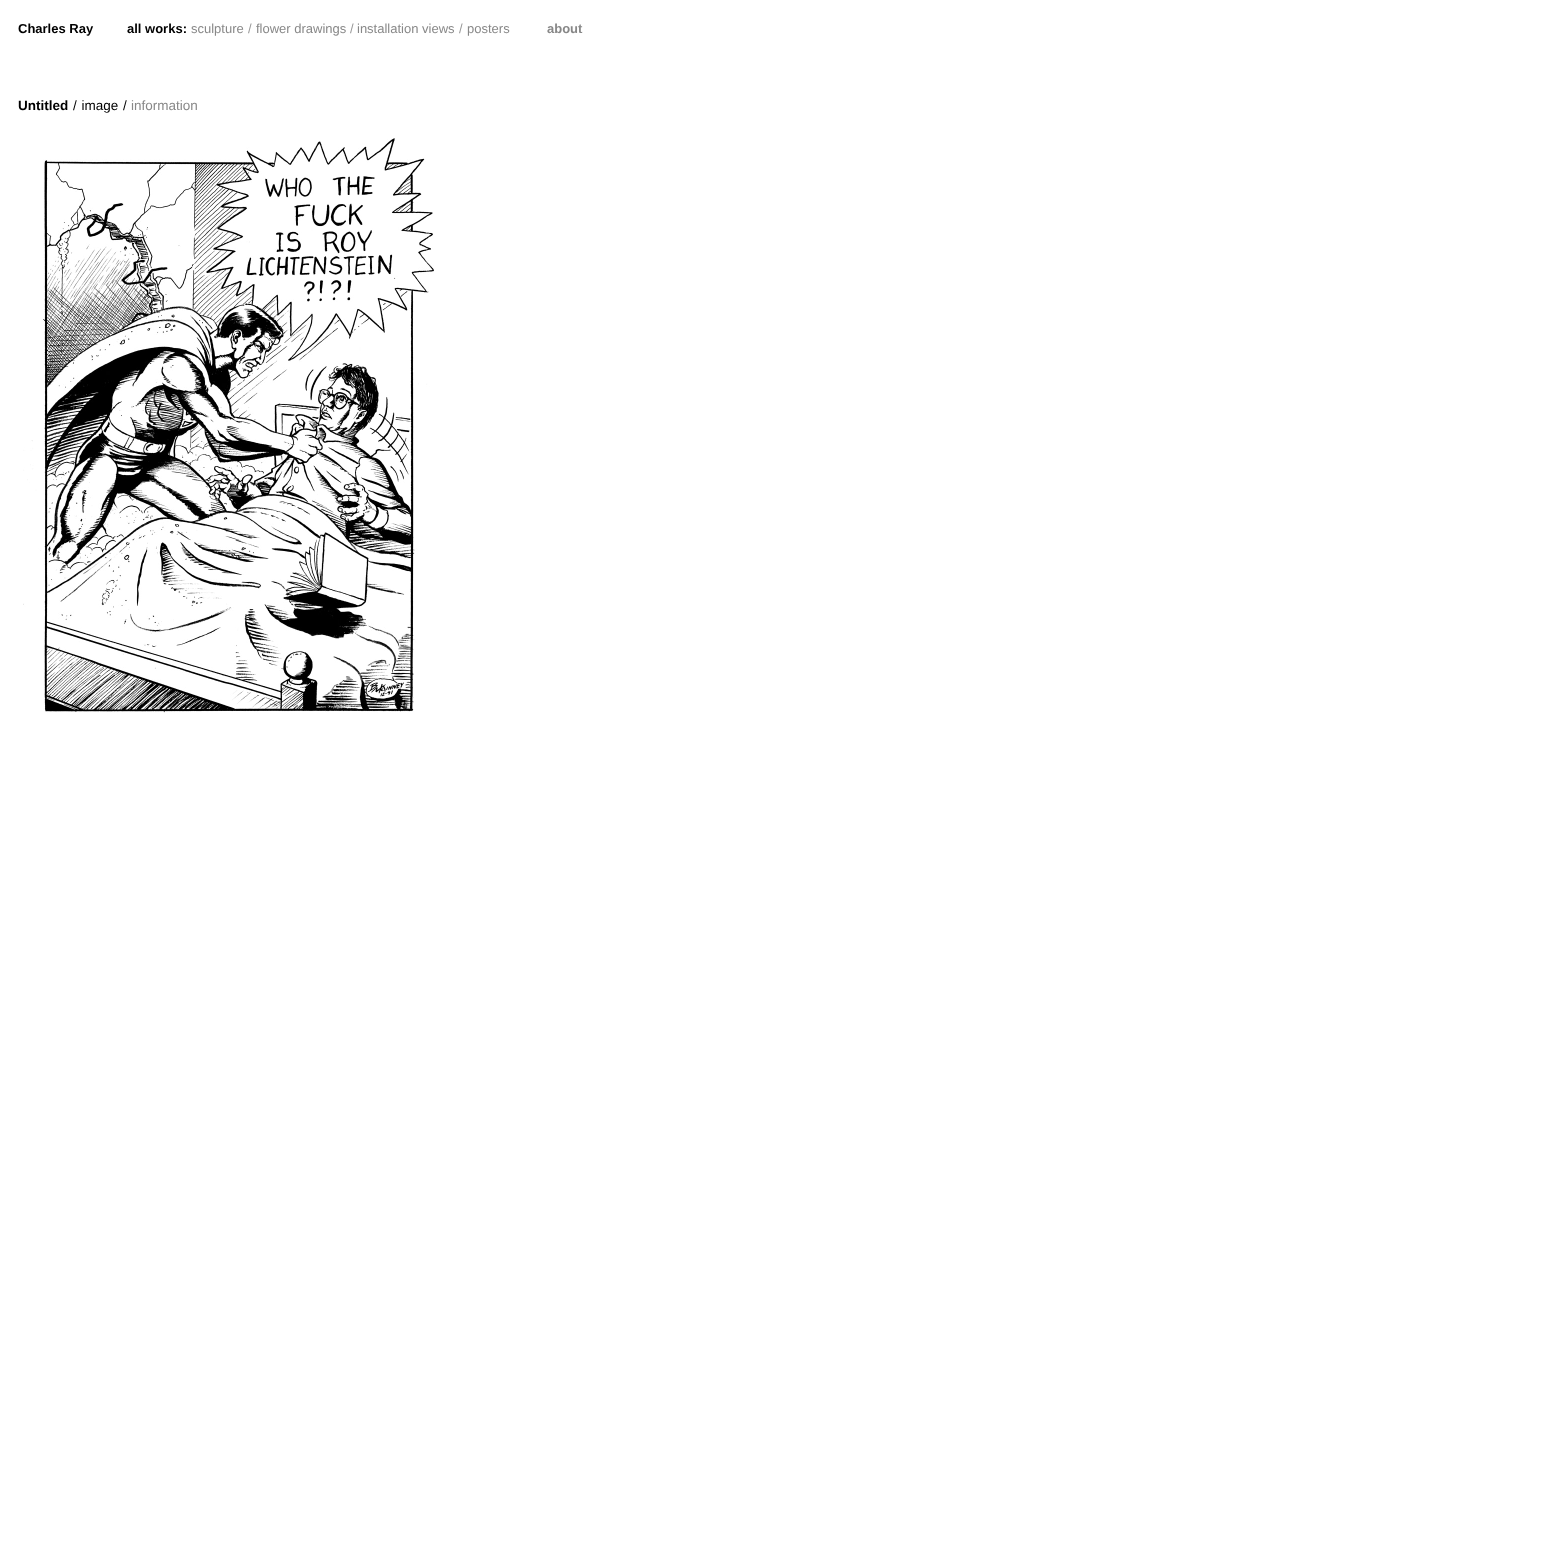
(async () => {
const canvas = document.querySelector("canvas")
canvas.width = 1547
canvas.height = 1557
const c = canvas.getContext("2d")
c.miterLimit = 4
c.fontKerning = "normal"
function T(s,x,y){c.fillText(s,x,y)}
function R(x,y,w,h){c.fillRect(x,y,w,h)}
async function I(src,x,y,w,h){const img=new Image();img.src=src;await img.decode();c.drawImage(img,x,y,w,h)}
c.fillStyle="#fff"
R(0,0,1547,1557)
c.font="bold 13px Liberation Sans"
c.fillStyle="#000"
T("Charles Ray",18,33)
T("all works:",127,33)
c.font="13px Liberation Sans"
c.fillStyle="#888"
T("sculpture",191,33)
c.fillStyle="#999"
T("/",248,33)
c.fillStyle="#888"
T("flower drawings",256,33)
c.fillStyle="#999"
T("/",350,33)
c.fillStyle="#888"
T("installation views",357,33)
c.fillStyle="#999"
T("/",459,33)
c.fillStyle="#888"
T("posters",467,33)
c.font="bold 13px Liberation Sans"
T("about",547,33)
c.font="bold 13.5px Liberation Sans"
c.fillStyle="#000"
T("Untitled",18,110)
c.wordSpacing="1px"
c.font="13.5px Liberation Sans"
T("/ image",73,110)
c.wordSpacing="0px"
T("/",123,110)
c.fillStyle="#888"
T("information",131,110)
await I("1.png",23,138,411,575)
})()
